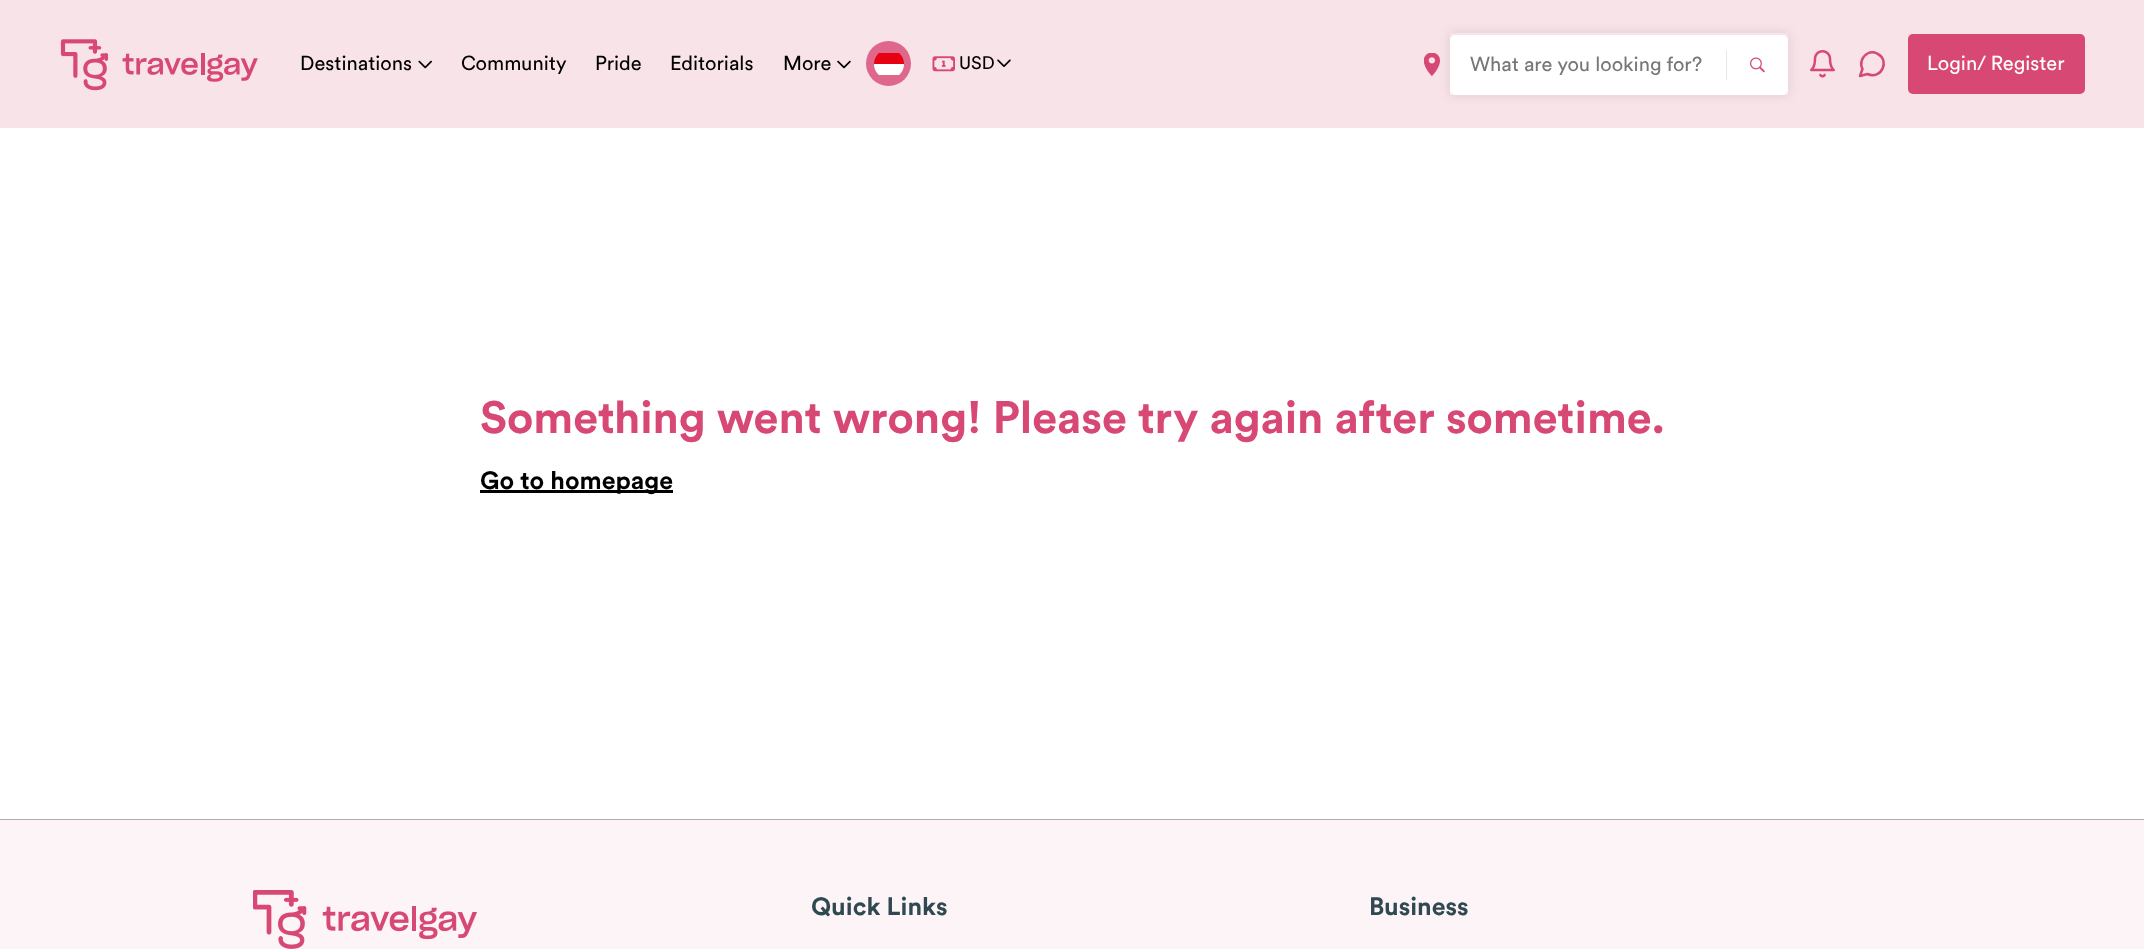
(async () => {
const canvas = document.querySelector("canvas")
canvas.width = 2144
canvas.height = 949
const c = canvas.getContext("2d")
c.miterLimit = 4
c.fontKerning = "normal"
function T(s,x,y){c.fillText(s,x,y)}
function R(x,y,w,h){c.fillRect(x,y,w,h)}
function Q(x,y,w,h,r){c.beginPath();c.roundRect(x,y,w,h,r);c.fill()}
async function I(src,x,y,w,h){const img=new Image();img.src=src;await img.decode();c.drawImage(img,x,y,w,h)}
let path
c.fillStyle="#fff"
R(0,0,2144,949)
c.fillStyle="#f8e3e8"
R(0,0,2144,128)
await I("1.png",60,39,198,52)
c.font="20px Circular"
c.fillStyle="#000"
T("Destinations",300,70)
await I("2.png",418,60,14,9)
T("Community",461,70)
T("Pride",595,70)
T("Editorials",670,70)
T("More",783,70)
await I("3.png",837,60,14,9)
c.fillStyle="#de678b"
c.beginPath()
c.arc(888.5,63.5,22.5,0,7)
c.fill()
c.save()
c.beginPath()
c.roundRect(874,49,30,30,15)
c.clip()
c.fillStyle="#e70011"
R(874,53,30,11)
c.fillStyle="#fff"
R(874,64,30,11)
c.restore()
await I("4.png",932,56,23,16)
c.font="18px Circular"
c.fillStyle="#000"
T("USD",959,69)
await I("5.png",997,59,14,8)
await I("6.png",1424,53,16,23)
c.save()
path = new Path2D("M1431 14h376v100h-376zm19 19h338v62h-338z")
c.clip(path,"evenodd")
c.fillStyle="#0000001a"
c.filter="blur(6px)"
c.beginPath()
c.rect(1450,33,338,62)
c.fill()
c.filter="none"
c.restore()
c.fillStyle="#fff"
Q(1450,35,338,60,5)
c.fillStyle="#e5e7eb"
R(1726,50,1,30)
c.font="20px Circular"
c.fillStyle="#777"
T("What are you looking for?",1470,71)
await I("7.png",1750,57,15,16)
await I("8.png",1810,50,25,28)
path = new Path2D("M1867.5 74c13.5 6.5 23.5-14 9.5-20.5c-3-1.5-6.5-1.5-9.5 0c-5.5 3-8 10-5 15.5l-2.5 7z")
c.strokeStyle="#d74874"
c.lineWidth=2.5
c.lineCap="round"
c.lineJoin="round"
c.stroke(path)
c.fillStyle="#d74874"
Q(1908,34,177,60,5)
c.fillStyle="#fff"
T("Login/ Register",1927,70)
c.font="bold 45px Circular"
c.fillStyle="#d74874"
T("Something went wrong! Please try again after sometime.",480,433)
c.fillStyle="#000"
R(480,490,193,3)
c.font="bold 25px Circular"
T("Go to homepage",480,489)
c.fillStyle="#fcf4f6"
R(0,820,2144,129)
c.fillStyle="#b0abac"
R(0,819,2144,1)
await I("9.png",253,890,224,59)
c.fillStyle="#304951"
T("Quick Links",811,915)
T("Business",1369,915)
})()
